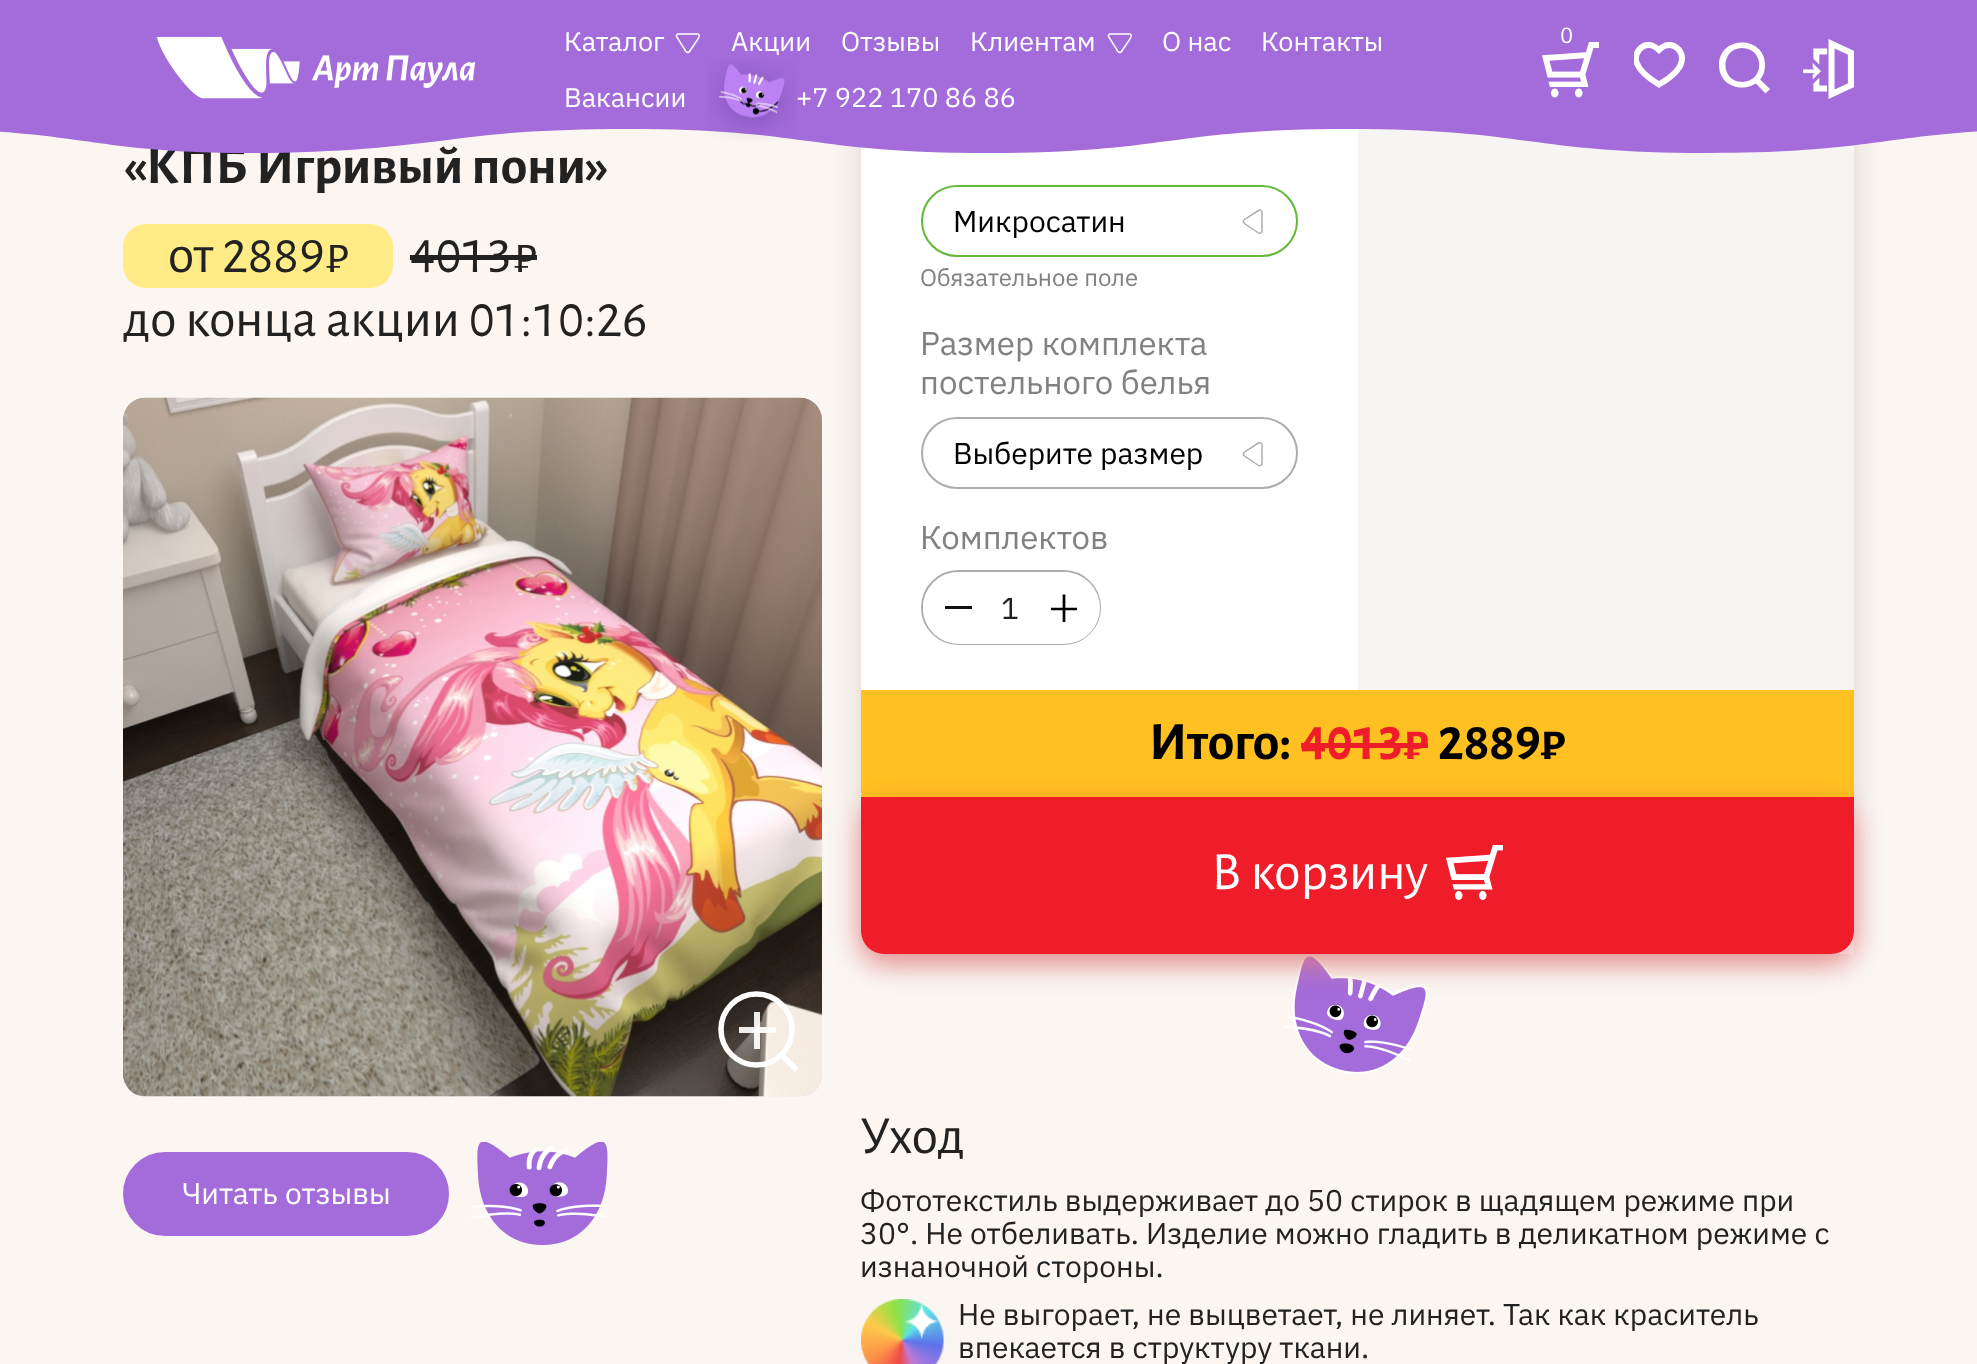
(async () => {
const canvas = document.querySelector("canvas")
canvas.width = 1977
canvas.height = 1364
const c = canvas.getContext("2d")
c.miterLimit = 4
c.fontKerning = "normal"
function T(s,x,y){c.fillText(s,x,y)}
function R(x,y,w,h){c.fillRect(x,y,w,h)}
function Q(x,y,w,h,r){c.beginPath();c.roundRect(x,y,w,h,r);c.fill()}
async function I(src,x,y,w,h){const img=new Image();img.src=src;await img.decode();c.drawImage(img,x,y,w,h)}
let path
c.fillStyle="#fbf6f2"
R(0,0,1977,1364)
c.font="bold 54px Alegreya Sans"
c.fillStyle="#222"
T("«КПБ Игривый пони»",123,183)
await I("5.png",123,398,699,699)
await I("6.png",123,397,699,700)
await I("9.png",1284,954,144,120)
c.fillStyle="#d1c4bcb3"
c.filter="blur(14px)"
c.beginPath()
c.roundRect(861,95,993,868,23)
c.fill()
c.filter="none"
c.fillStyle="#fff"
Q(861,86,993,868,23)
c.fillStyle="#f6f5f4"
R(1358,129,496,825)
c.save()
c.beginPath()
c.rect(0,0,1977,153)
c.clip()
c.fillStyle="#a46cda"
path = new Path2D("M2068 129c-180 0-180 24-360 24c-180 0-180-24-360-24c-179 0-180 24-360 24c-180 0-180-24-360-24c-180 0-180 21-360 24c-179 2-180-24-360-24v-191h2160z")
c.fill(path)
c.restore()
await I("1.png",157,36,319,63)
c.font="27px IBM Plex Sans"
c.fillStyle="#fff"
T("Каталог",564,51)
path = new Path2D("M689.5 51.5c-2 3-4.5-1-5-2.5l-8-12.5v-1.5l1.5-1h19.5c4.5 1-1 6.5-1.5 8z")
c.strokeStyle="#fff"
c.lineWidth=1.5
c.stroke(path)
T("Акции",731,51)
T("Отзывы",841,51)
T("Клиентам",970,51)
path = new Path2D("M1121.5 51.5c-2 3-4.5-1-5-2.5l-8-12.5v-1.5l1.5-1h19.5c4.5 1-1 6.5-1.5 8z")
c.stroke(path)
T("О нас",1162,51)
T("Контакты",1261,51)
T("Вакансии",564,107)
await I("2.png",707,60,90,81)
T("+7 922 170 86 86",796,107)
c.font="22px IBM Plex Sans"
T("0",1560,43)
await I("3.png",1542,42,57,56)
c.save()
c.beginPath()
c.rect(1634,42,52,47)
c.clip()
path = new Path2D("M1682 58.5c0-8.5-8-15.5-16.5-13c-2.5 1-4.5 2.5-6.5 4.5c-2-2-4-3.5-7-4.5c-10-3-18.5 8-15.5 17c3.5 10 14 17 22.5 22c8.5-5 23-15 23-26z")
c.lineWidth=6
c.stroke(path)
c.restore()
path = new Path2D("M1742 48c-22 0-22 34 0 34c23 0 23-34 0-34zm-23 17c0-30 46-30 46 0c0 30-46 30-46 0z")
c.fill(path,"evenodd")
path = new Path2D("M1758 77.5l12 11.5l-4.5 4.5l-11.5-12z")
c.fill(path,"evenodd")
await I("4.png",1803,39,51,60)
c.fillStyle="#ffec87"
Q(123,224,270,64,23)
c.font="54px Alegreya Sans"
c.fillStyle="#222"
T("от",168,272)
c.font="54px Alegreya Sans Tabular"
T("2889",222,272)
c.font="54px Alegreya Sans"
T("₽",325,272)
c.font="54px Alegreya Sans Tabular"
T("4013",410,272)
R(410,255,103,5)
c.font="54px Alegreya Sans"
T("₽",513,272)
R(513,255,24,5)
T("до конца акции",123,336)
c.font="54px Alegreya Sans Tabular"
T("01:10:26",469,336)
c.beginPath()
c.arc(756.5,1029.5,35.5,0,7)
c.lineWidth=5.5
c.stroke()
path = new Path2D("M796.5 1070l-15.5-16")
c.stroke(path)
c.fillStyle="#ffffffeb"
R(754,1012,6,37)
R(739,1027,37,6)
c.fillStyle="#a46cda"
c.beginPath()
c.roundRect(124,1153,324,82,41)
c.fill()
c.strokeStyle="#a46cda"
c.lineWidth=2
c.stroke()
c.font="30px IBM Plex Sans"
c.fillStyle="#fff"
T("Читать отзывы",182,1204)
await I("7.png",471,1142,137,103)
path = new Path2D("M1244.5 223.5c-1.5-1-1.5-3 0-4l14-9c1.5-1 3.5 0 3.5 2v18.5c0 1.5-2 3-3.5 2z")
c.strokeStyle="#b0aab2"
c.lineWidth=1.5
c.stroke(path)
c.beginPath()
c.roundRect(922,186,375,70,35)
c.strokeStyle="#62b839"
c.lineWidth=2
c.stroke()
c.fillStyle="#000"
T("Микросатин",953,232)
c.font="24px IBM Plex Sans"
c.fillStyle="#838084"
T("Обязательное поле",920,286)
c.font="33px IBM Plex Sans"
T("Размер комплекта",920,355)
T("постельного белья",920,394)
path = new Path2D("M1244.5 456c-1.5-1-1.5-3 0-4l14-9c1.5-1 3.5 0 3.5 2v18.5c0 1.5-2 3-3.5 2z")
c.strokeStyle="#b0aab2"
c.lineWidth=1.5
c.stroke(path)
c.beginPath()
c.roundRect(922,418,375,70,35)
c.lineWidth=2
c.stroke()
c.font="30px IBM Plex Sans"
c.fillStyle="#000"
T("Выберите размер",953,464)
c.font="33px IBM Plex Sans"
c.fillStyle="#838084"
T("Комплектов",920,549)
c.beginPath()
c.roundRect(922,571,178,73,36.5)
c.stroke()
c.fillStyle="#fff"
c.beginPath()
c.roundRect(923,572,72,72,[36,0,0,36])
c.fill()
c.fillStyle="#111"
R(945,606,27,3)
c.fillStyle="#fff"
R(995,643,33,1)
c.font="30px IBM Plex Sans"
c.fillStyle="#222"
T("1",1001,619)
c.fillStyle="#fff"
c.beginPath()
c.roundRect(1028,572,72,72,[0,36,36,0])
c.fill()
path = new Path2D("M1051 609h26m-13-14.5v27.5")
c.strokeStyle="#000"
c.lineWidth=2.7
c.stroke(path)
c.fillStyle="#ffc121"
R(861,690,993,107)
c.font="bold 54px Alegreya Sans"
c.fillStyle="#000"
T("Итого:",1149,759)
c.font="bold 54px Alegreya Sans Tabular"
c.fillStyle="#ef1d2a"
T("4013",1301,759)
R(1301,743,103,5)
c.font="bold 54px Alegreya Sans"
T("₽",1403,759)
R(1404,743,24,5)
c.font="bold 54px Alegreya Sans Tabular"
c.fillStyle="#000"
T("2889",1438,759)
c.font="bold 54px Alegreya Sans"
T("₽",1540,759)
c.fillStyle="#ef1d2a66"
c.filter="blur(14px)"
c.beginPath()
c.roundRect(861,806,993,157,23)
c.fill()
c.filter="none"
c.fillStyle="#ef1d2a"
c.beginPath()
c.roundRect(861,797,993,157,[0,0,23,23])
c.fill()
c.font="54px Alegreya Sans"
c.fillStyle="#fff"
T("В корзину",1211,889)
await I("8.png",1446,845,57,55)
c.fillStyle="#222"
T("Уход",860,1153)
c.font="30px IBM Plex Sans"
T("Фототекстиль выдерживает до 50 стирок в щадящем режиме при",860,1211)
T("30°. Не отбеливать. Изделие можно гладить в деликатном режиме с",860,1244)
T("изнаночной стороны.",860,1277)
await I("10.png",861,1299,83,65)
T("Не выгорает, не выцветает, не линяет. Так как краситель",958,1325)
T("впекается в структуру ткани.",958,1358)
})()
